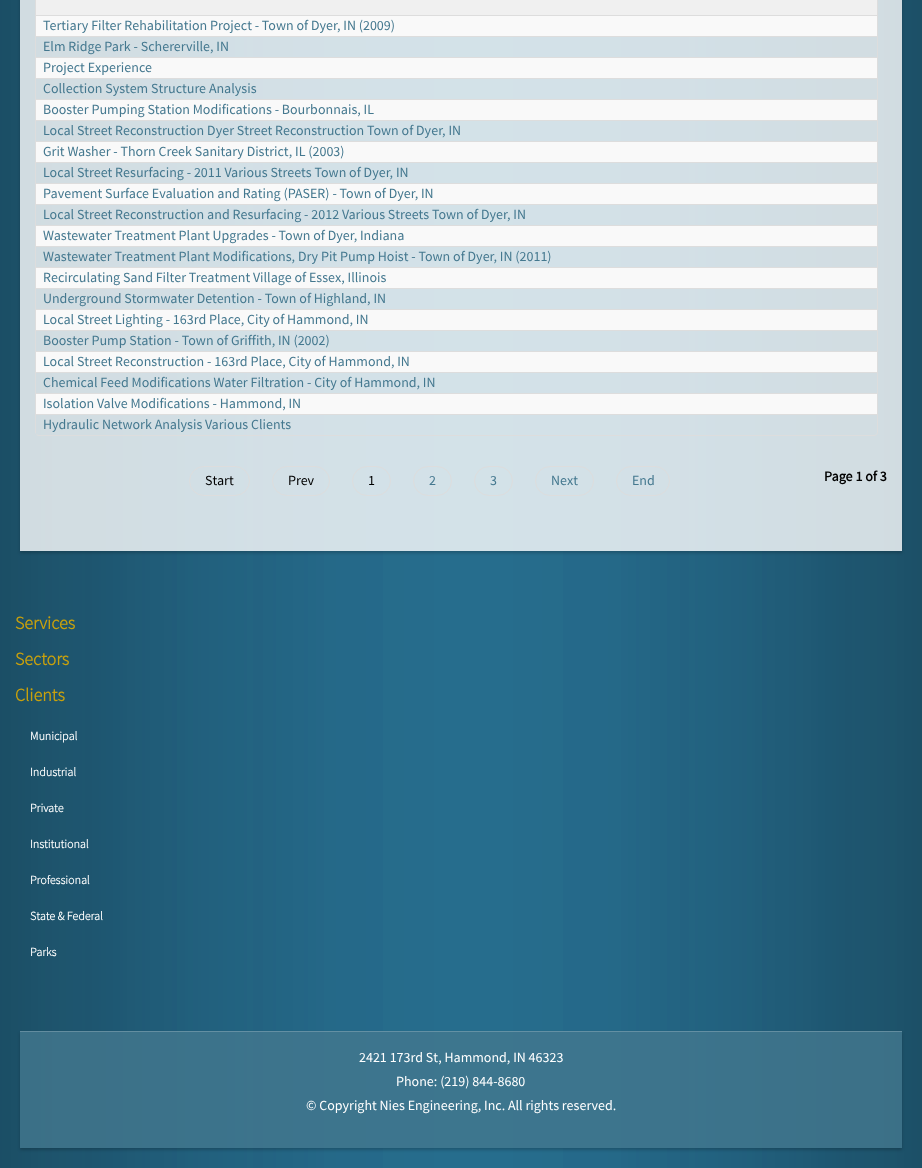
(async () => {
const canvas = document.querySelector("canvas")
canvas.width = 922
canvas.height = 1168
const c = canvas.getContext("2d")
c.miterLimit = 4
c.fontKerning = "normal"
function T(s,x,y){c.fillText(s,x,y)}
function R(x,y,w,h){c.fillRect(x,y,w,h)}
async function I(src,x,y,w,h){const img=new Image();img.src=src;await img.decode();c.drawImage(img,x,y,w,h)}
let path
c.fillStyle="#fff"
R(0,0,922,1168)
await I("1.png",0,0,922,1168)
c.save()
path = new Path2D("M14 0h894v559h-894zm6-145h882v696h-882z")
c.clip(path,"evenodd")
c.fillStyle="#00000033"
c.filter="blur(1.5px)"
c.beginPath()
c.rect(20,-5,882,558)
c.fill()
c.filter="none"
c.restore()
c.fillStyle="#ffffffcc"
R(20,0,882,551)
c.fillStyle="#ddd"
path = new Path2D("M39-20h835c2 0 4 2 4 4v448c0 2-2 4-4 4h-835c-2 0-4-2-4-4v-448c0-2 2-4 4-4zm0 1h835c2 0 3 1 3 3v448c0 2-1 3-3 3h-835c-2 0-4-1-4-3v-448c0-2 2-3 4-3z")
c.fill(path,"evenodd")
c.fillStyle="#f0f0f0"
R(36,0,841,15)
c.fillStyle="#ddd"
R(35,0,1,15)
c.fillStyle="#f9f9f9"
R(36,16,841,20)
c.fillStyle="#ddd"
R(35,15,842,1)
R(35,15,1,21)
c.font="14px Source Sans Pro"
c.fillStyle="#44788f"
T("Tertiary Filter Rehabilitation Project - Town of Dyer, IN (2009)",43,30)
c.fillStyle="#ddd"
R(35,36,842,1)
R(35,36,1,21)
c.fillStyle="#44788f"
T("Elm Ridge Park - Schererville, IN",43,51)
c.fillStyle="#f9f9f9"
R(36,58,841,20)
c.fillStyle="#ddd"
R(35,57,842,1)
R(35,57,1,21)
c.fillStyle="#44788f"
T("Project Experience",43,72)
c.fillStyle="#ddd"
R(35,78,842,1)
R(35,78,1,21)
c.fillStyle="#44788f"
T("Collection System Structure Analysis",43,93)
c.fillStyle="#f9f9f9"
R(36,100,841,20)
c.fillStyle="#ddd"
R(35,99,842,1)
R(35,99,1,21)
c.fillStyle="#44788f"
T("Booster Pumping Station Modifications - Bourbonnais, IL",43,114)
c.fillStyle="#ddd"
R(35,120,842,1)
R(35,120,1,21)
c.fillStyle="#44788f"
T("Local Street Reconstruction Dyer Street Reconstruction Town of Dyer, IN",43,135)
c.fillStyle="#f9f9f9"
R(36,142,841,20)
c.fillStyle="#ddd"
R(35,141,842,1)
R(35,141,1,21)
c.fillStyle="#44788f"
T("Grit Washer - Thorn Creek Sanitary District, IL (2003)",43,156)
c.fillStyle="#ddd"
R(35,162,842,1)
R(35,162,1,21)
c.fillStyle="#44788f"
T("Local Street Resurfacing - 2011 Various Streets Town of Dyer, IN",43,177)
c.fillStyle="#f9f9f9"
R(36,184,841,20)
c.fillStyle="#ddd"
R(35,183,842,1)
R(35,183,1,21)
c.fillStyle="#44788f"
T("Pavement Surface Evaluation and Rating (PASER) - Town of Dyer, IN",43,198)
c.fillStyle="#ddd"
R(35,204,842,1)
R(35,204,1,21)
c.fillStyle="#44788f"
T("Local Street Reconstruction and Resurfacing - 2012 Various Streets Town of Dyer, IN",43,219)
c.fillStyle="#f9f9f9"
R(36,226,841,20)
c.fillStyle="#ddd"
R(35,225,842,1)
R(35,225,1,21)
c.fillStyle="#44788f"
T("Wastewater Treatment Plant Upgrades - Town of Dyer, Indiana",43,240)
c.fillStyle="#ddd"
R(35,246,842,1)
R(35,246,1,21)
c.fillStyle="#44788f"
T("Wastewater Treatment Plant Modifications, Dry Pit Pump Hoist - Town of Dyer, IN (2011)",43,261)
c.fillStyle="#f9f9f9"
R(36,268,841,20)
c.fillStyle="#ddd"
R(35,267,842,1)
R(35,267,1,21)
c.fillStyle="#44788f"
T("Recirculating Sand Filter Treatment Village of Essex, Illinois",43,282)
c.fillStyle="#ddd"
R(35,288,842,1)
R(35,288,1,21)
c.fillStyle="#44788f"
T("Underground Stormwater Detention - Town of Highland, IN",43,303)
c.fillStyle="#f9f9f9"
R(36,310,841,20)
c.fillStyle="#ddd"
R(35,309,842,1)
R(35,309,1,21)
c.fillStyle="#44788f"
T("Local Street Lighting - 163rd Place, City of Hammond, IN",43,324)
c.fillStyle="#ddd"
R(35,330,842,1)
R(35,330,1,21)
c.fillStyle="#44788f"
T("Booster Pump Station - Town of Griffith, IN (2002)",43,345)
c.fillStyle="#f9f9f9"
R(36,352,841,20)
c.fillStyle="#ddd"
R(35,351,842,1)
R(35,351,1,21)
c.fillStyle="#44788f"
T("Local Street Reconstruction - 163rd Place, City of Hammond, IN",43,366)
c.fillStyle="#ddd"
R(35,372,842,1)
R(35,372,1,21)
c.fillStyle="#44788f"
T("Chemical Feed Modifications Water Filtration - City of Hammond, IN",43,387)
c.fillStyle="#f9f9f9"
R(36,394,841,20)
c.fillStyle="#ddd"
R(35,393,842,1)
R(35,393,1,21)
c.fillStyle="#44788f"
T("Isolation Valve Modifications - Hammond, IN",43,408)
c.fillStyle="#ddd"
R(35,414,842,1)
R(35,414,1,19)
c.fillStyle="#44788f"
T("Hydraulic Network Analysis Various Clients",43,429)
c.beginPath()
c.roundRect(189.5,466.5,60,29,14.5)
c.strokeStyle="#ddd"
c.stroke()
c.fillStyle="#000"
T("Start",205,485)
c.beginPath()
c.roundRect(272.5,466.5,57,29,14.5)
c.stroke()
T("Prev",288,485)
c.beginPath()
c.roundRect(352.5,466.5,38,29,14.5)
c.stroke()
T("1",368,485)
c.beginPath()
c.roundRect(413.5,466.5,38,29,14.5)
c.stroke()
c.fillStyle="#44788f"
T("2",429,485)
c.beginPath()
c.roundRect(474.5,466.5,38,29,14.5)
c.stroke()
T("3",490,485)
c.beginPath()
c.roundRect(535.5,466.5,58,29,14.5)
c.stroke()
T("Next",551,485)
c.beginPath()
c.roundRect(616.5,466.5,53,29,14.5)
c.stroke()
T("End",632,485)
c.font="bold 14px Source Sans Pro"
c.fillStyle="#000"
T("Page 1 of 3",824,481)
c.font="bold 18px 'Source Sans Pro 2'"
c.fillStyle="#c9a10c"
T("Services",15,629)
T("Sectors",15,665)
T("Clients",15,701)
c.font="bold 12px 'Source Sans Pro 2'"
c.fillStyle="#fff"
T("Municipal",30,740)
T("Industrial",30,776)
T("Private",30,812)
T("Institutional",30,848)
T("Professional",30,884)
T("State & Federal",30,920)
T("Parks",30,956)
c.save()
path = new Path2D("M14 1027h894v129h-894zm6 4h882v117h-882z")
c.clip(path,"evenodd")
c.fillStyle="#00000033"
c.filter="blur(1.5px)"
c.beginPath()
c.rect(20,1033,882,117)
c.fill()
c.filter="none"
c.restore()
c.fillStyle="#43788ecc"
R(20,1031,882,117)
c.fillStyle="#ffffff33"
R(20,1031,882,1)
c.font="14px Source Sans Pro"
c.fillStyle="#fff"
T("2421 173rd St, Hammond, IN 46323",359,1062)
T("Phone: (219) 844-8680",396,1086)
T("© Copyright Nies Engineering, Inc. All rights reserved.",306,1110)
})()
